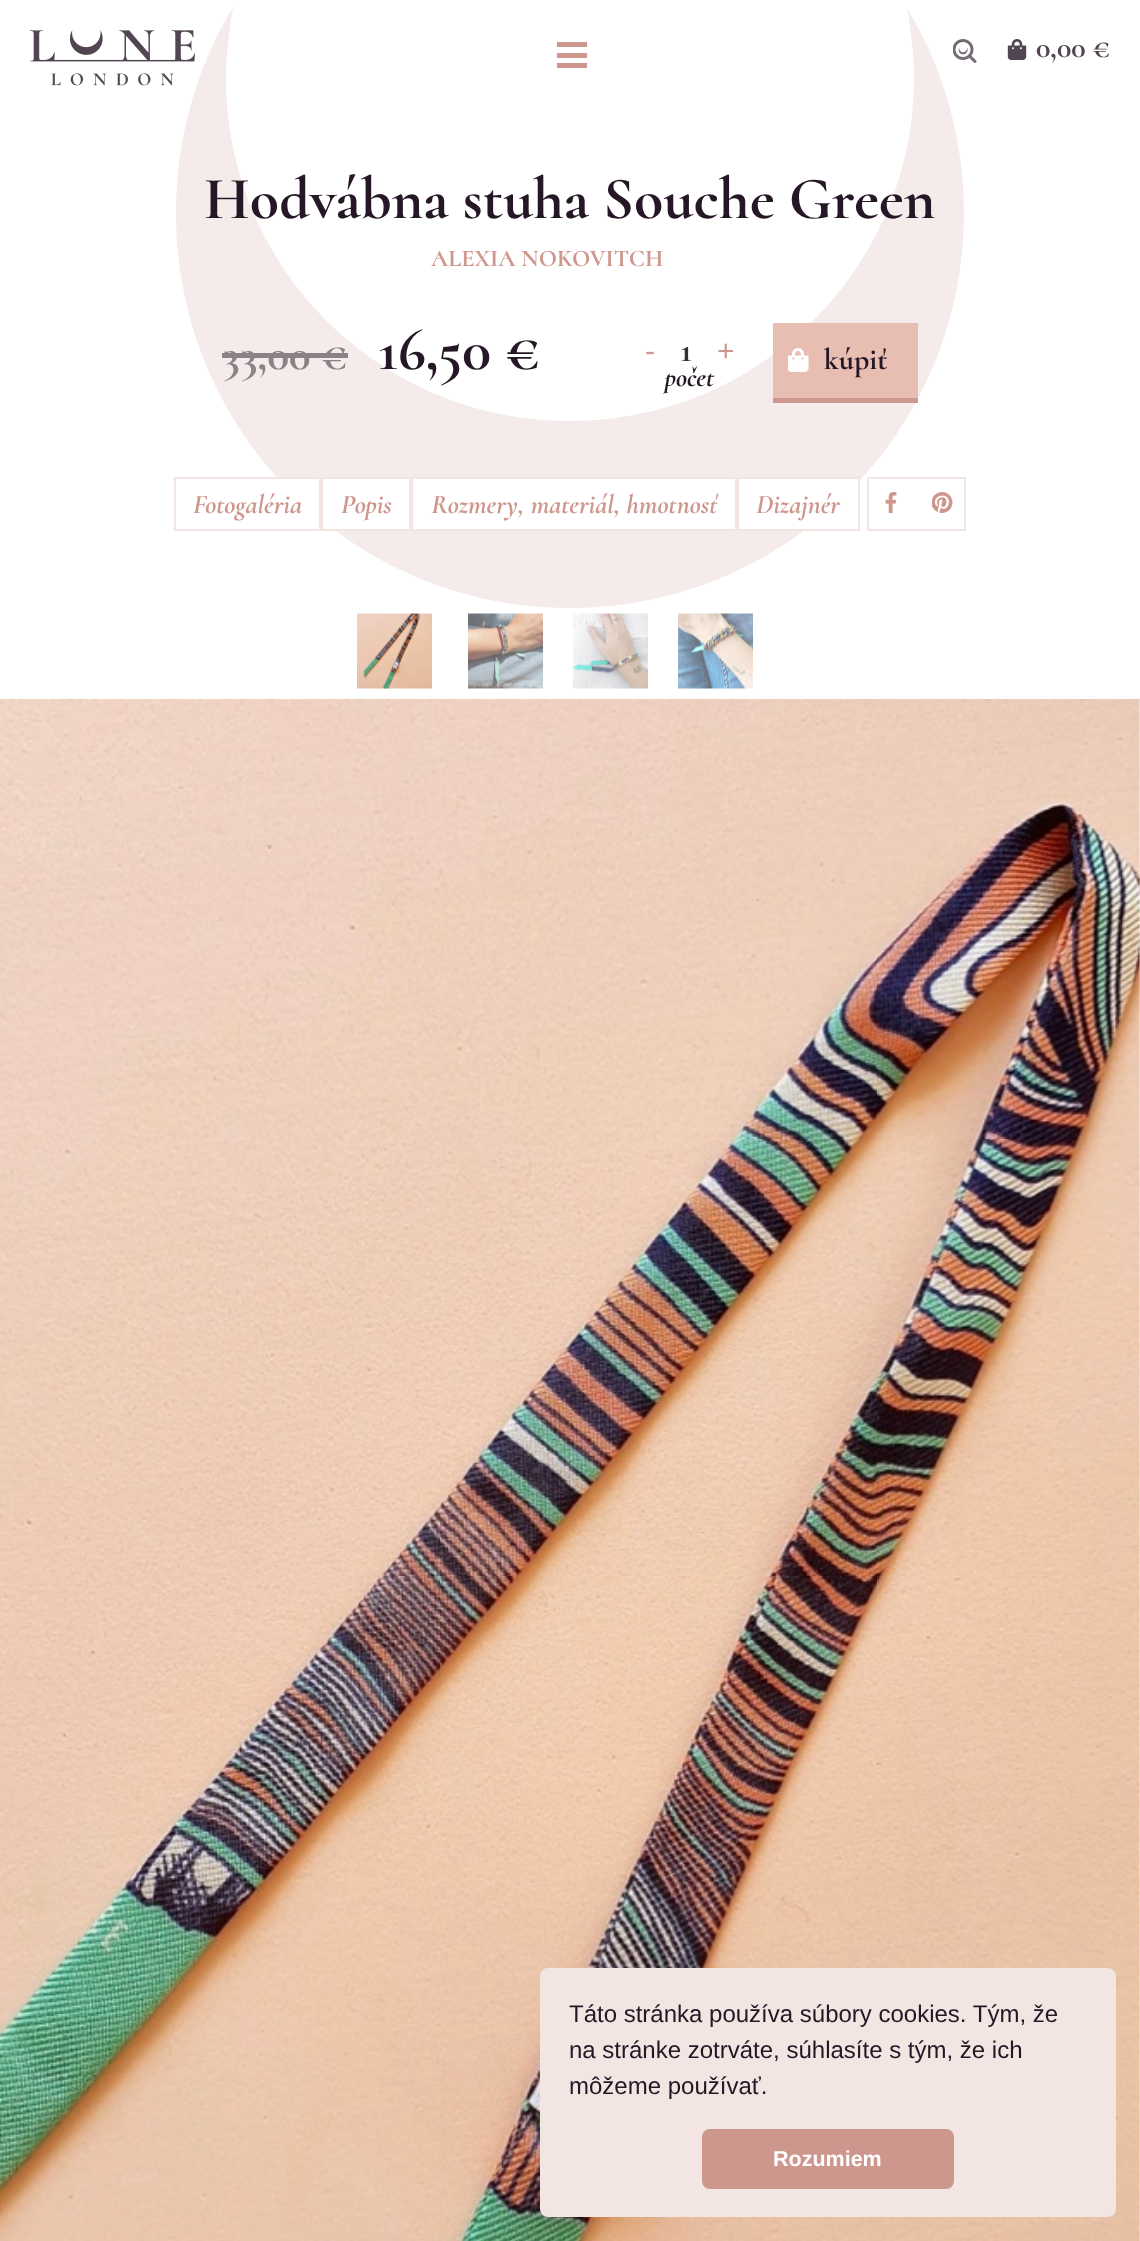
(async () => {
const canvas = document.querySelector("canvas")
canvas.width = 1140
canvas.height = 2241
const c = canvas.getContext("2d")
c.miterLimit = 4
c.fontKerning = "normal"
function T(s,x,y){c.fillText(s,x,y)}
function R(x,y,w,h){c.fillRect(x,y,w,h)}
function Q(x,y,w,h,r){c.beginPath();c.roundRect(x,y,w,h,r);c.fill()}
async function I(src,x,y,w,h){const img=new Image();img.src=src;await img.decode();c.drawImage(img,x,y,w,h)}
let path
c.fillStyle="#fff"
R(0,0,1140,2241)
await I("1.png",30,30,165,56)
c.fillStyle="#ce978d"
R(557,42,30,5)
R(557,53,30,5)
R(557,63,30,5)
await I("2.png",953,39,24,24)
await I("3.png",1007,39,20,21)
c.font="bold 30px Cormorant"
c.fillStyle="#514551"
T("0,00 €",1036,57)
c.fillStyle="#f4ebea"
path = new Path2D("M570 608c218 0 394-177 394-395c0-75-21-146-57-205c4 22 7 46 7 70c0 190-154 343-344 343c-190 0-344-153-344-343c0-24 3-48 7-71c-36 60-57 131-57 206c0 218 176 395 394 395")
c.fill(path)
c.font="bold 60px Cormorant"
c.fillStyle="#251726"
T("Hodvábna stuha Souche Green",204,218)
c.font="bold 24px Cormorant"
c.fillStyle="#ce978d"
T("ALEXIA NOKOVITCH",431,266)
c.font="bold 45px Cormorant"
c.fillStyle="#8d8188"
T("33,00 €",222,369)
R(222,353,126,5)
c.font="bold 60px Cormorant"
c.fillStyle="#251726"
T("16,50 €",378,369)
c.font="30px Liberation Sans"
c.fillStyle="#ce978d"
T("-",645,361)
c.font="bold 36px Cormorant"
c.fillStyle="#333"
T("1",680,361)
c.font="30px Liberation Sans"
c.fillStyle="#ce978d"
T("+",717,361)
c.font="italic bold 27px Cormorant"
c.fillStyle="#251726"
T("počet",665,386)
c.fillStyle="#e8beb3"
R(773,323,145,75)
await I("4.png",788,348,21,24)
c.fillStyle="#ce978d"
R(773,398,145,5)
c.font="bold 30px Cormorant"
c.fillStyle="#251726"
T("kúpiť",824,369)
c.fillStyle="#fff"
R(279,479,40,39)
c.strokeStyle="#f3e5e2"
c.lineWidth=2
c.strokeRect(175,478,145,52)
c.font="italic bold 27px Cormorant"
c.fillStyle="#ce978d"
T("Fotogaléria",193,513)
c.fillStyle="#fff"
c.beginPath()
c.rect(322,478,88,52)
c.fill()
c.stroke()
c.fillStyle="#ce978d"
T("Popis",341,513)
c.fillStyle="#fff"
c.beginPath()
c.rect(412,478,324,52)
c.fill()
c.stroke()
c.fillStyle="#ce978d"
T("Rozmery, materiál, hmotnosť",431,513)
c.fillStyle="#fff"
c.beginPath()
c.rect(738,478,121,52)
c.fill()
c.stroke()
c.fillStyle="#ce978d"
T("Dizajnér",756,513)
c.strokeRect(868,478,97,52)
await I("5.png",885,492,12,21)
await I("6.png",932,492,21,21)
await I("7.png",357,613,75,76)
await I("8.png",468,613,75,76)
await I("9.png",573,613,75,76)
await I("10.png",678,613,75,76)
await I("11.png",0,699,1140,1542)
c.fillStyle="#f3e5e2"
Q(540,1968,576,249,8)
c.font="24px Liberation Sans"
c.fillStyle="#251726"
T("Táto stránka používa súbory cookies. Tým, že",569,2022)
T("na stránke zotrváte, súhlasíte s tým, že ich",569,2058)
T("môžeme používať.",569,2094)
c.fillStyle="#ce978d"
Q(702,2129,252,60,8)
c.font="bold 21.5px Liberation Sans"
c.fillStyle="#fff"
T("Rozumiem",773,2166)
})()
